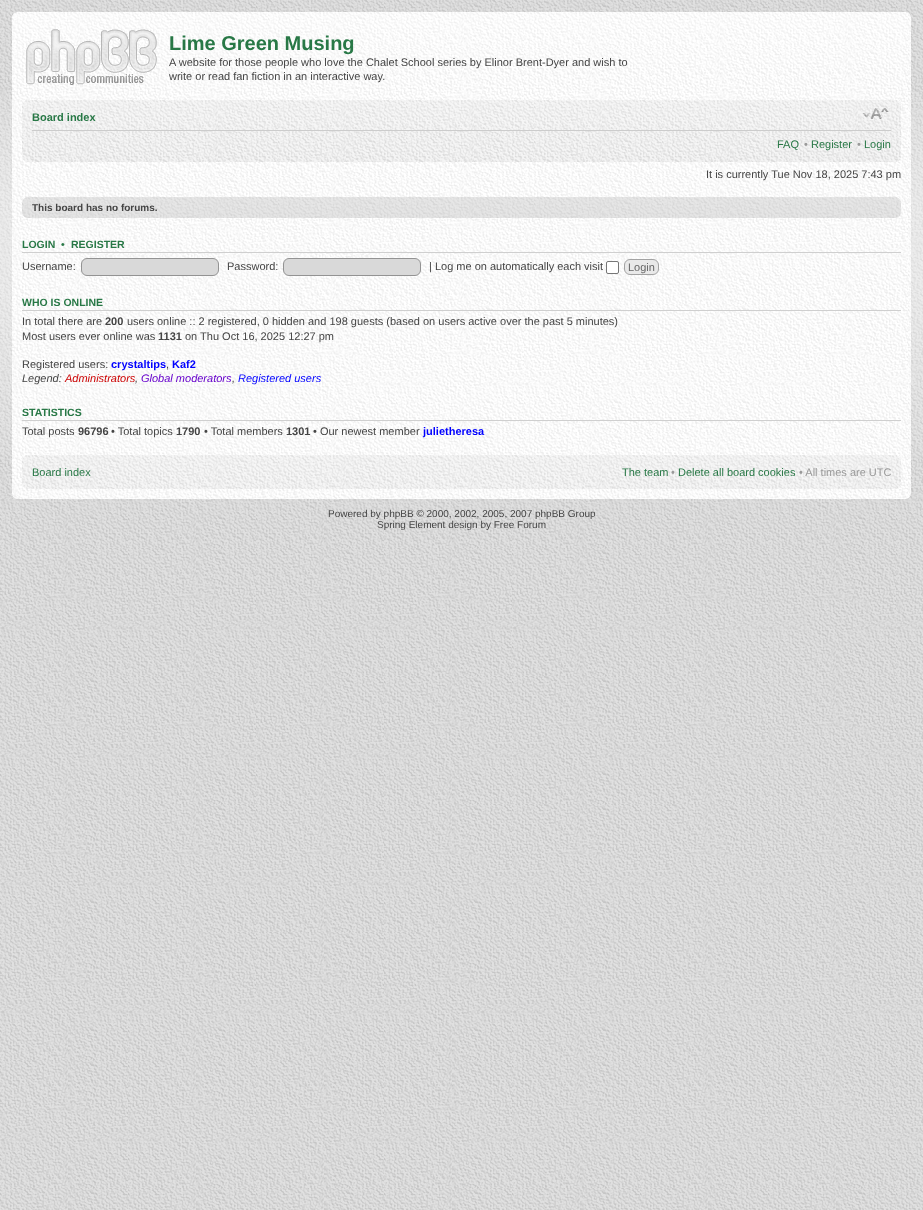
(async () => {
const canvas = document.querySelector("canvas")
canvas.width = 923
canvas.height = 1210
const c = canvas.getContext("2d")
c.miterLimit = 4
c.fontKerning = "normal"
function T(s,x,y){c.fillText(s,x,y)}
function R(x,y,w,h){c.fillRect(x,y,w,h)}
async function I(src,x,y,w,h){const img=new Image();img.src=src;await img.decode();c.drawImage(img,x,y,w,h)}
c.fillStyle="#fff"
R(0,0,923,1210)
await I("1.png",0,543,923,667)
await I("2.png",0,0,923,543)
await I("3.png",0,93,923,364)
await I("4.png",12,12,899,487)
await I("5.png",12,12,5,5)
await I("6.png",906,12,5,5)
await I("7.png",26,29,131,56)
c.font="bold 20px Liberation Sans"
c.fillStyle="#287846"
T("Lime Green Musing",169,50)
c.font="11px Liberation Sans"
c.fillStyle="#444"
T("A website for those people who love the Chalet School series by Elinor Brent-Dyer and wish to",169,66)
T("write or read fan fiction in an interactive way.",169,80)
await I("8.png",22,100,879,62)
await I("9.png",22,100,4,4)
await I("10.png",897,100,4,2)
c.fillStyle="#ccc"
R(32,130,859,1)
c.font="bold 11px Liberation Sans"
c.fillStyle="#287846"
T("Board index",32,121)
await I("11.png",862,108,27,11)
c.font="11px Liberation Sans"
T("FAQ",777,148)
c.fillStyle="#999"
T("•",804,148)
c.fillStyle="#287846"
T("Register",811,148)
c.fillStyle="#999"
T("•",857,148)
c.fillStyle="#287846"
T("Login",864,148)
await I("12.png",22,158,5,4)
await I("13.png",899,158,2,4)
c.fillStyle="#444"
T("It is currently Tue Nov 18, 2025 7:43 pm",706,178)
await I("14.png",22,197,879,21)
await I("15.png",22,197,5,5)
await I("16.png",896,197,5,4)
c.font="bold 10px Liberation Sans"
T("This board has no forums.",32,211)
await I("17.png",22,213,5,5)
await I("18.png",896,213,5,5)
c.fillStyle="#cfcfcf"
R(22,252,879,1)
c.font="bold 10.5px Liberation Sans"
c.fillStyle="#287846"
T("LOGIN",22,248)
T("•",61,248)
T("REGISTER",71,248)
c.font="11px Liberation Sans"
c.fillStyle="#444"
T("Username:",22,270)
c.fillStyle="#d9d9d9"
c.beginPath()
c.roundRect(81.5,258.5,137,17,5.5)
c.fill()
c.strokeStyle="#939393"
c.stroke()
c.fillStyle="#444"
T("Password:",227,270)
c.fillStyle="#d9d9d9"
c.beginPath()
c.roundRect(283.5,258.5,137,17,5.5)
c.fill()
c.stroke()
c.fillStyle="#444"
T("| Log me on automatically each visit",429,270)
c.fillStyle="#fff"
c.beginPath()
c.roundRect(606.5,261.5,12,12,1.5)
c.fill()
c.strokeStyle="#767676"
c.stroke()
c.fillStyle="#e9e9e9"
c.beginPath()
c.roundRect(624.5,259.5,34,15,5.5)
c.fill()
c.strokeStyle="#a3a3a3"
c.stroke()
c.fillStyle="#666"
T("Login",628,271)
c.fillStyle="#cfcfcf"
R(22,310,879,1)
c.font="bold 10.5px Liberation Sans"
c.fillStyle="#287846"
T("WHO IS ONLINE",22,306)
c.font="11px Liberation Sans"
c.fillStyle="#444"
T("In total there are",22,325)
c.font="bold 11px Liberation Sans"
T("200",105,325)
c.font="11px Liberation Sans"
T("users online :: 2 registered, 0 hidden and 198 guests (based on users active over the past 5 minutes)",127,325)
T("Most users ever online was",22,340)
c.font="bold 11px Liberation Sans"
T("1131",158,340)
c.font="11px Liberation Sans"
T("on Thu Oct 16, 2025 12:27 pm",185,340)
T("Registered users:",22,368)
c.font="bold 11px Liberation Sans"
c.fillStyle="#00f"
T("crystaltips",111,368)
c.font="11px Liberation Sans"
c.fillStyle="#444"
T(",",166,368)
c.font="bold 11px Liberation Sans"
c.fillStyle="#00f"
T("Kaf2",172,368)
c.font="italic 11px Liberation Sans"
c.fillStyle="#444"
T("Legend:",22,382)
c.fillStyle="#c00"
T("Administrators",65,382)
c.fillStyle="#444"
T(",",135,382)
c.fillStyle="#60c"
T("Global moderators",141,382)
c.fillStyle="#444"
T(",",232,382)
c.fillStyle="#00f"
T("Registered users",238,382)
c.fillStyle="#cfcfcf"
R(22,420,879,1)
c.font="bold 10.5px Liberation Sans"
c.fillStyle="#287846"
T("STATISTICS",22,416)
c.font="11px Liberation Sans"
c.fillStyle="#444"
T("Total posts",22,435)
c.font="bold 11px Liberation Sans"
T("96796",78,435)
c.font="11px Liberation Sans"
T("• Total topics",111,435)
c.font="bold 11px Liberation Sans"
T("1790",176,435)
c.font="11px Liberation Sans"
T("• Total members",204,435)
c.font="bold 11px Liberation Sans"
T("1301",286,435)
c.font="11px Liberation Sans"
T("• Our newest member",313,435)
c.font="bold 11px Liberation Sans"
c.fillStyle="#00f"
T("julietheresa",423,435)
await I("19.png",22,455,879,34)
await I("9.png",22,455,4,4)
await I("10.png",897,455,4,2)
c.font="11px Liberation Sans"
c.fillStyle="#287846"
T("Board index",32,476)
T("The team",622,476)
c.fillStyle="#999"
T("•",671,476)
c.fillStyle="#287846"
T("Delete all board cookies",678,476)
c.fillStyle="#999"
T("• All times are UTC",799,476)
await I("20.png",22,485,5,4)
await I("21.png",897,485,4,4)
await I("22.png",12,494,5,5)
await I("23.png",906,494,5,5)
c.font="10px Liberation Sans"
c.fillStyle="#444"
T("Powered by phpBB © 2000, 2002, 2005, 2007 phpBB Group",328,517)
T("Spring Element design by Free Forum",377,528)
})()
